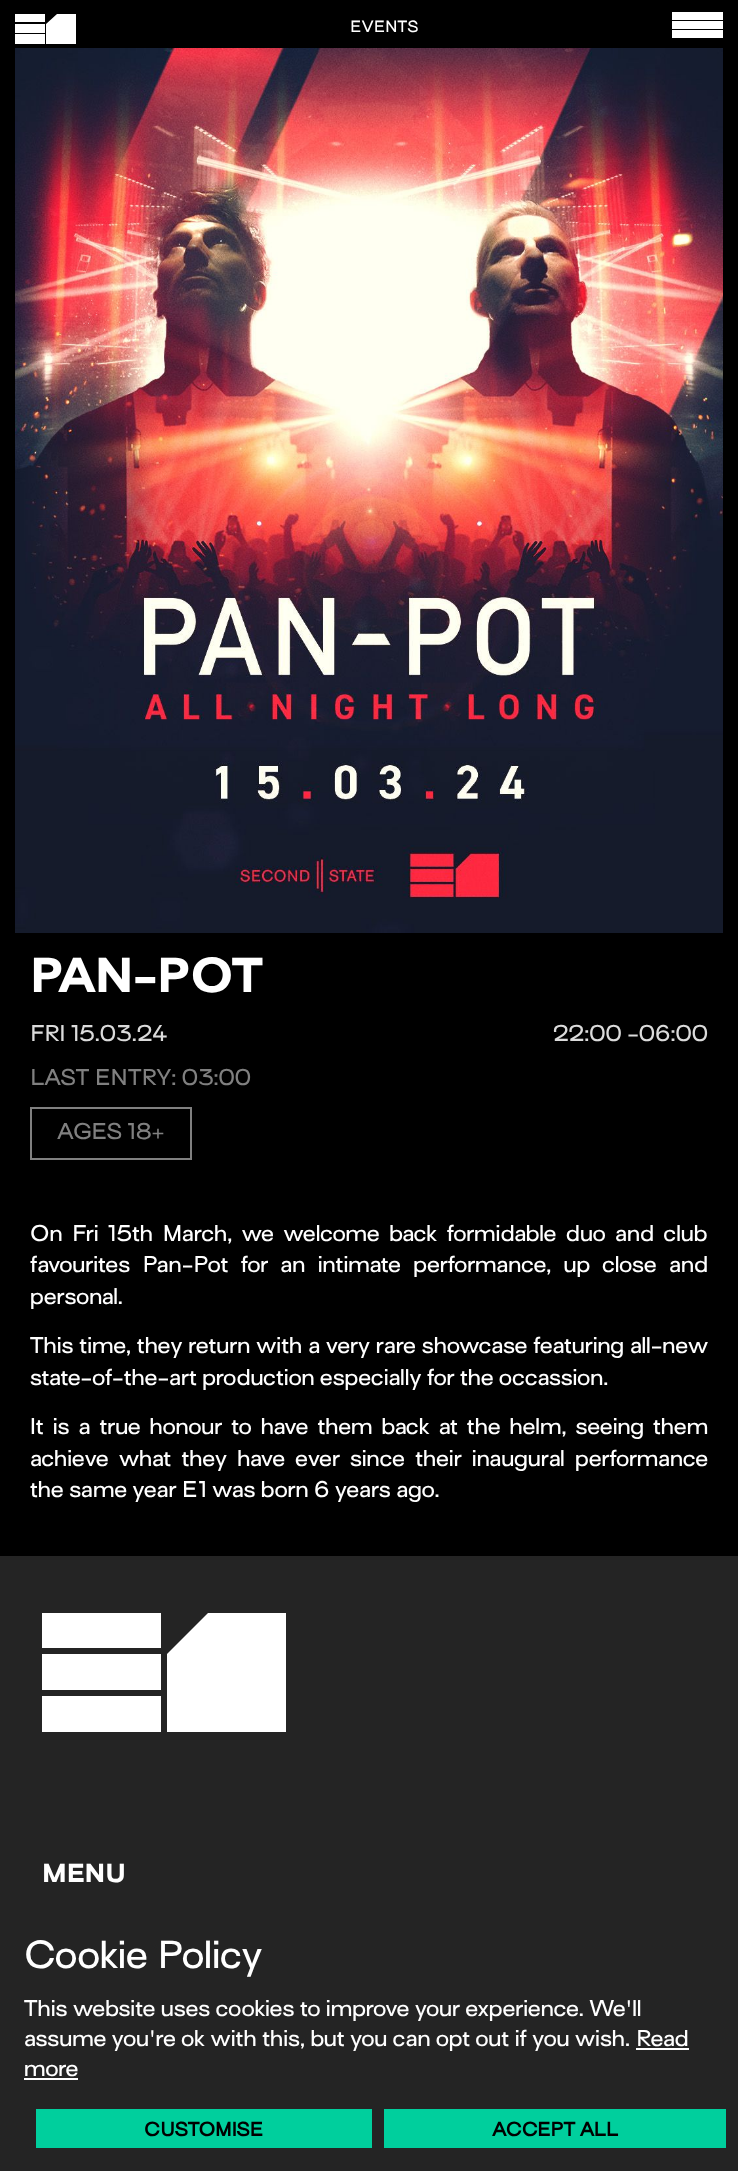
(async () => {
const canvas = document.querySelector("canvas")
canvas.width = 738
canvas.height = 2171
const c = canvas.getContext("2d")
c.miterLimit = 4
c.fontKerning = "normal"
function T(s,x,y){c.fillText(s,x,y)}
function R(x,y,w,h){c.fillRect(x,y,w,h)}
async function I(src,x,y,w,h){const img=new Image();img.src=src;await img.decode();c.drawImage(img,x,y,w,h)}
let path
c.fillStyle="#000"
R(0,0,738,2171)
c.fillStyle="#fff"
path = new Path2D("M15 22h30v-8h-30zm61-8v30h-30v-20l11-10zm-61 30h30v-10h-30zm0-11h30v-9h-30z")
c.fill(path)
c.font="500 15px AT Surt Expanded"
T("EVENTS",350,32)
R(672,12,51,8)
R(672,21,51,8)
R(672,30,51,8)
await I("1.png",15,48,708,885)
c.font="800 45px AT Surt Expanded"
T("PAN-POT",30,992)
c.font="500 21px AT Surt Expanded"
c.fillStyle="#dbdbdb"
T("FRI 15.03.24",30,1041)
T("22:00 -06:00",553,1041)
c.fillStyle="#808080"
T("LAST ENTRY: 03:00",30,1085)
c.strokeStyle="#808080"
c.lineWidth=2
c.strokeRect(31,1108,160,51)
T("AGES 18+",57,1139)
c.wordSpacing="4px"
c.fillStyle="#fff"
T("On Fri 15th March, we welcome back formidable duo and club",30,1241)
c.wordSpacing="6.75px"
T("favourites Pan-Pot for an intimate performance, up close and",30,1272)
c.wordSpacing="0px"
T("personal.",30,1304)
c.wordSpacing="0.4px"
T("This time, they return with a very rare showcase featuring all-new",30,1353)
c.wordSpacing="0px"
T("state-of-the-art production especially for the occassion.",30,1385)
c.wordSpacing="3.5px"
T("It is a true honour to have them back at the helm, seeing them",30,1434)
c.wordSpacing="4.75px"
T("achieve what they have ever since their inaugural performance",30,1466)
c.wordSpacing="0px"
T("the same year E1 was born 6 years ago.",30,1497)
c.fillStyle="#242424"
R(0,1556,738,615)
c.save()
c.beginPath()
c.rect(42,1613,245,120)
c.clip()
c.fillStyle="#fff"
path = new Path2D("M42 1648h119v-36h-119zm244-36v120h-119v-78l42-42zm-244 120h119v-36h-119zm0-42h119v-36h-119z")
c.fill(path)
c.restore()
c.font="800 24px AT Surt Expanded"
c.fillStyle="#fff"
T("MENU",42,1882)
c.font="500 36px AT Surt Expanded"
T("Cookie Policy",24,1968)
c.font="500 21px AT Surt Expanded"
T("This website uses cookies to improve your experience. We'll",24,2016)
T("assume you're ok with this, but you can opt out if you wish.",24,2046)
T("Read",636,2046)
R(636,2048,53,2)
T("more",24,2076)
R(24,2078,54,2)
c.fillStyle="#00cf9d"
R(36,2109,336,39)
c.font="bold 18px AT Surt Expanded"
c.fillStyle="#000"
T("CUSTOMISE",144,2136)
c.fillStyle="#00cf9d"
R(384,2109,342,39)
c.fillStyle="#000"
T("ACCEPT ALL",492,2136)
})()
